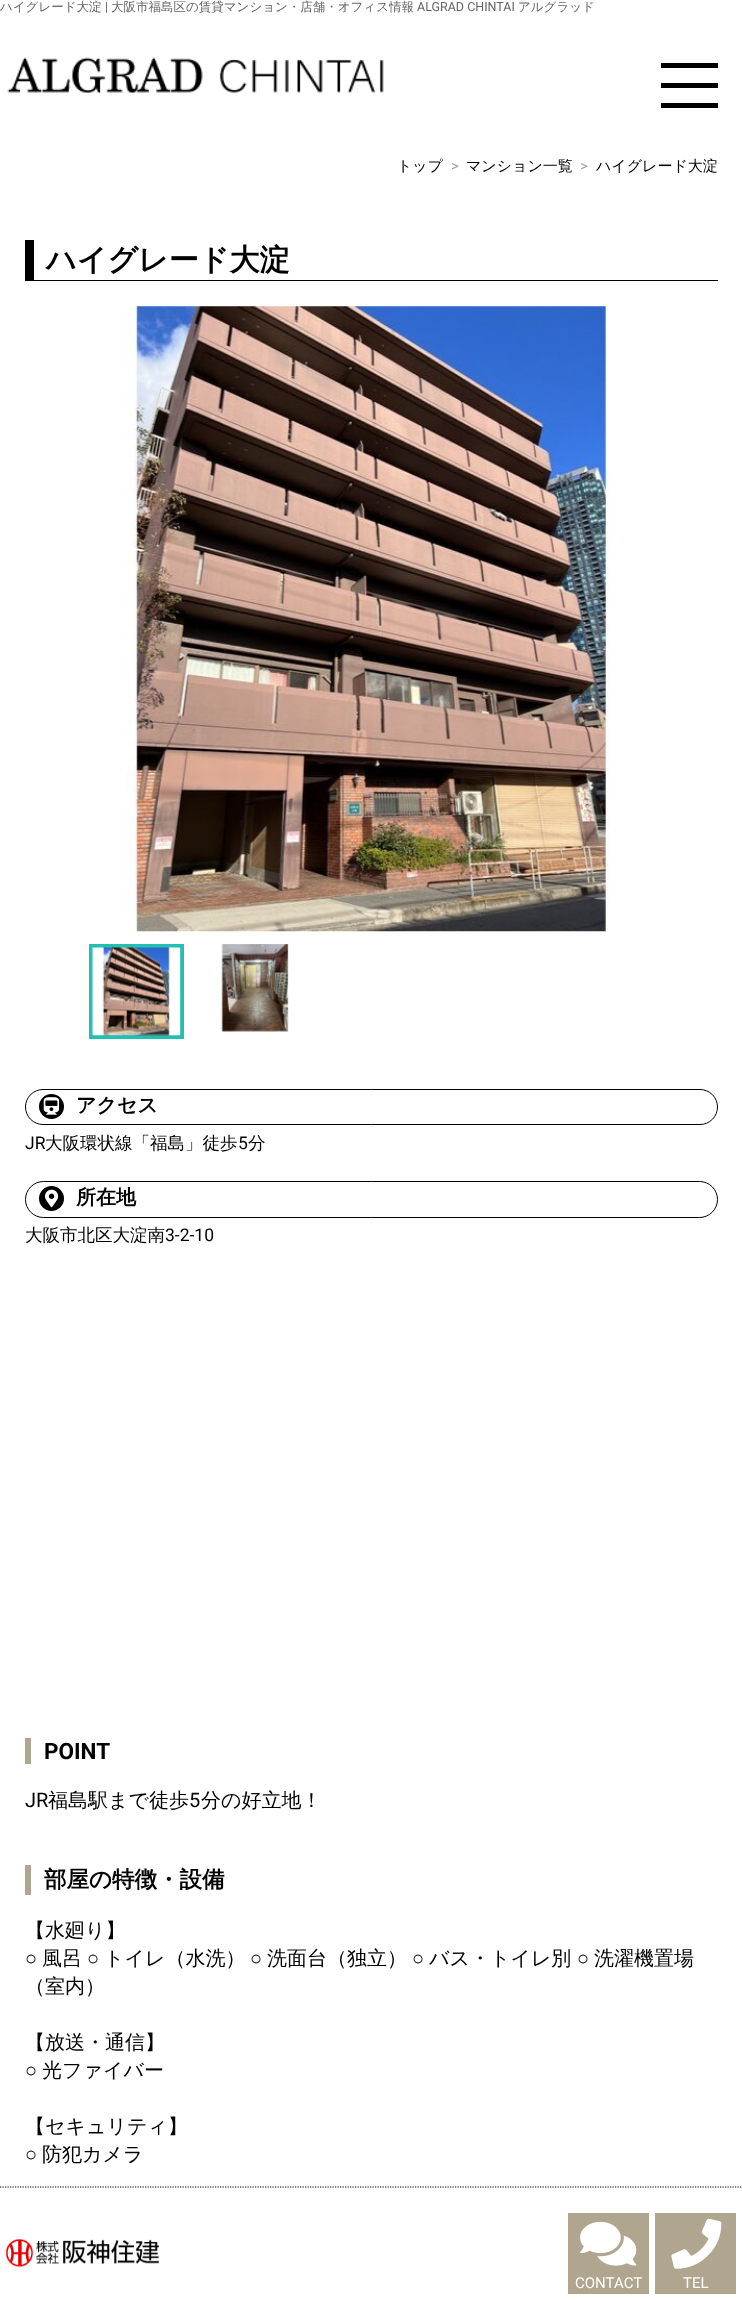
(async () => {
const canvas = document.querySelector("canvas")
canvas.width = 742
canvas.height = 2300
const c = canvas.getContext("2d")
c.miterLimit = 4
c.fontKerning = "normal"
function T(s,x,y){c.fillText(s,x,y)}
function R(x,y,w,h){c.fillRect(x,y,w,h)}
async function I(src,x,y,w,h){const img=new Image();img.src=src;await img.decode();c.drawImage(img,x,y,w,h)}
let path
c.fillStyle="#fff"
R(0,0,742,2300)
c.font="500 12.5px WenQuanYi Zen Hei"
c.fillStyle="#666"
T("ハイグレード大淀",0,11)
c.font="12.5px Roboto"
T("|",105,11)
c.font="500 12.5px WenQuanYi Zen Hei"
T("大阪市福島区の賃貸マンション・店舗・オフィス情報",111,11)
c.font="12.5px Roboto"
T("ALGRAD CHINTAI",417,11)
c.font="500 12.5px WenQuanYi Zen Hei"
T("アルグラッド",518,11)
await I("1.png",7,57,377,36)
c.fillStyle="#000"
R(661,83,57,5)
R(661,63,57,5)
R(661,103,57,5)
c.font="500 15px WenQuanYi Zen Hei"
T("トップ",397,171)
c.font="15px Roboto"
c.fillStyle="#9d9d9d"
T(">",451,171)
c.font="500 15px WenQuanYi Zen Hei"
c.fillStyle="#000"
T("マンション一覧",466,171)
c.font="15px Roboto"
c.fillStyle="#9d9d9d"
T(">",580,171)
c.font="500 15px WenQuanYi Zen Hei"
c.fillStyle="#000"
T("ハイグレード大淀",596,171)
R(34,280,684,1)
R(25,240,9,41)
c.font="bold 30px WenQuanYi Zen Hei"
T("ハイグレード大淀",46,270)
await I("2.png",126,306,483,626)
c.strokeStyle="#23bfb0"
c.lineWidth=4
c.strokeRect(91,946,91,91)
await I("3.png",91,947,90,89)
await I("4.png",221,944,68,88)
c.beginPath()
c.roundRect(25.5,1089.5,692,35,17.5)
c.strokeStyle="#000"
c.lineWidth=1
c.stroke()
c.beginPath()
c.arc(51.5,1106.5,12.5,0,7)
c.fill()
await I("5.png",43,1097,17,18)
c.font="bold 20px WenQuanYi Zen Hei"
T("アクセス",76,1112)
c.font="17.5px Roboto"
T("JR",25,1149)
c.font="500 17.5px WenQuanYi Zen Hei"
T("大阪環状線「福島」徒歩",45,1149)
c.font="17.5px Roboto"
T("5",238,1149)
c.font="500 17.5px WenQuanYi Zen Hei"
T("分",248,1149)
c.beginPath()
c.roundRect(25.5,1181.5,692,36,18)
c.stroke()
c.beginPath()
c.arc(51.5,1198.5,12.5,0,7)
c.fill()
await I("6.png",45,1189,14,19)
c.font="bold 20px WenQuanYi Zen Hei"
T("所在地",76,1204)
c.font="500 17.5px WenQuanYi Zen Hei"
T("大阪市北区大淀南",25,1241)
c.font="17.5px Roboto"
T("3-2-10",165,1241)
c.fillStyle="#b0a58f"
R(25,1738,6,26)
c.font="bold 22.5px Roboto"
c.fillStyle="#000"
T("POINT",44,1759)
c.font="20px Roboto"
T("JR",25,1807)
c.font="500 20px WenQuanYi Zen Hei"
T("福島駅まで徒歩",48,1807)
c.font="20px Roboto"
T("5",189,1807)
c.font="500 20px WenQuanYi Zen Hei"
T("分の好立地！",201,1807)
c.fillStyle="#b0a58f"
R(25,1865,6,30)
c.font="bold 22.5px WenQuanYi Zen Hei"
c.fillStyle="#000"
T("部屋の特徴・設備",44,1887)
c.font="500 20px WenQuanYi Zen Hei"
T("【水廻り】",25,1937)
c.font="20px Liberation Sans"
T("○",25,1965)
c.font="500 20px WenQuanYi Zen Hei"
T("風呂",42,1965)
c.font="20px Liberation Sans"
T("○",87,1965)
c.font="500 20px WenQuanYi Zen Hei"
T("トイレ（水洗）",104,1965)
c.font="20px Liberation Sans"
T("○",250,1965)
c.font="500 20px WenQuanYi Zen Hei"
T("洗面台（独立）",267,1965)
c.font="20px Liberation Sans"
T("○",412,1965)
c.font="500 20px WenQuanYi Zen Hei"
T("バス・トイレ別",429,1965)
c.font="20px Liberation Sans"
T("○",577,1965)
c.font="500 20px WenQuanYi Zen Hei"
T("洗濯機置場",594,1965)
T("（室内）",25,1993)
T("【放送・通信】",25,2049)
c.font="20px Liberation Sans"
T("○",25,2077)
c.font="500 20px WenQuanYi Zen Hei"
T("光ファイバー",42,2077)
T("【セキュリティ】",25,2133)
c.font="20px Liberation Sans"
T("○",25,2161)
c.font="500 20px WenQuanYi Zen Hei"
T("防犯カメラ",42,2161)
path = new Path2D("M0 2187h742.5")
c.lineWidth=1.2
c.setLineDash([1.25,1.25])
c.stroke(path)
await I("7.png",5,2239,154,28)
c.fillStyle="#b0a58f"
R(568,2213,81,81)
await I("8.png",580,2221,57,45)
c.font="15px Roboto"
c.fillStyle="#fff"
T("CONTACT",575,2288)
c.fillStyle="#b0a58f"
R(655,2213,81,81)
await I("9.png",671,2218,51,51)
c.fillStyle="#fff"
T("TEL",683,2288)
})()
